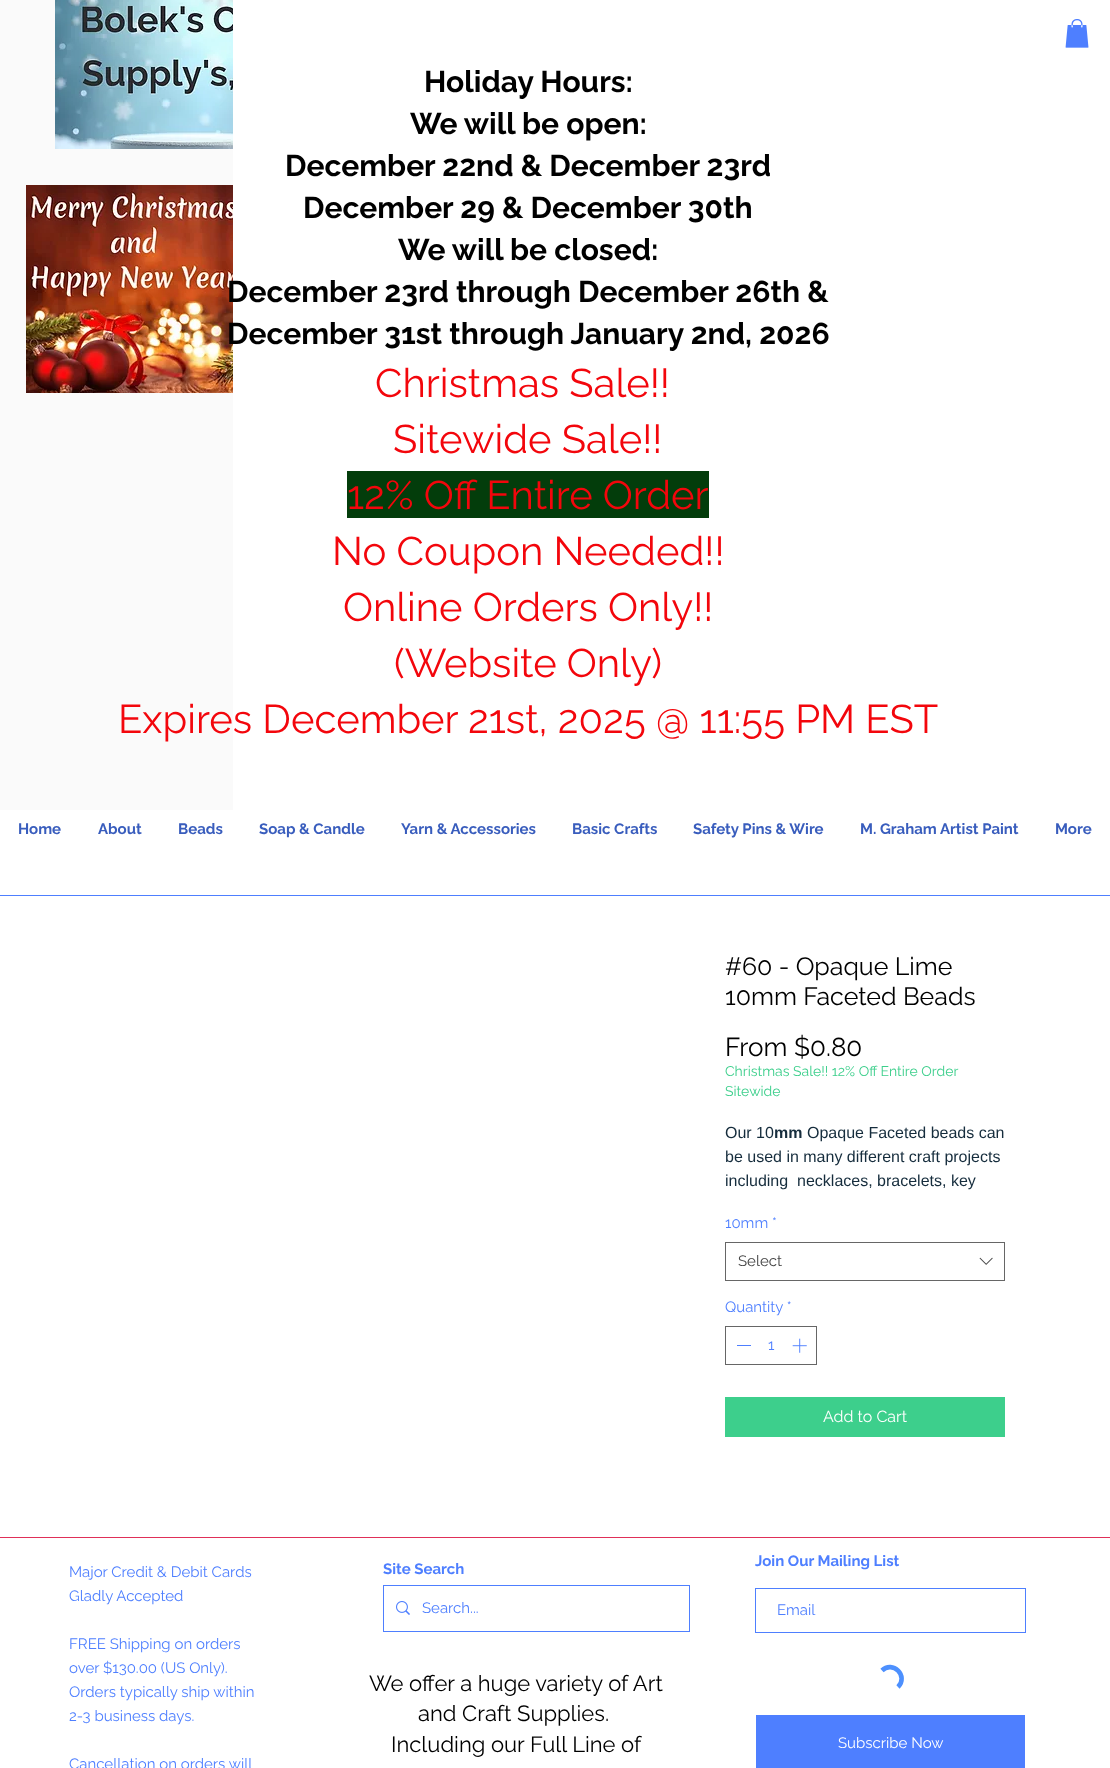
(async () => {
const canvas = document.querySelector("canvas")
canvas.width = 1110
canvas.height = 1768
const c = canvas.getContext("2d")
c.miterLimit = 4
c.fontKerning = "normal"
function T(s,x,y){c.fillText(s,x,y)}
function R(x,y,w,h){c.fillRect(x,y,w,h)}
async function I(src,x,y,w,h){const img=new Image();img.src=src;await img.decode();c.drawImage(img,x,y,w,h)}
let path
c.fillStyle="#fff"
R(0,0,1110,1768)
await I("1.png",1065,19,24,29)
c.fillStyle="#fafafa"
R(0,0,233,810)
await I("2.png",55,0,178,149)
await I("3.png",26,185,207,208)
c.font="bold 30px Raleway"
c.fillStyle="#000"
T("Holiday Hours:",424,92)
T("We will be open:",410,134)
T("December 22nd & December 23rd",285,176)
T("December 29 & December 30th",303,218)
T("We will be closed:",398,260)
T("December 23rd through December 26th &",227,302)
T("December 31st through January 2nd, 2026",227,344)
c.font="40px Raleway"
c.fillStyle="#f3060c"
T("Christmas Sale!!",375,397)
T("Sitewide Sale!!",393,453)
c.fillStyle="#033d0b"
R(347,471,362,47)
c.fillStyle="#f3060c"
T("12% Off Entire Order",347,509)
T("No Coupon Needed!!",332,565)
T("Online Orders Only!!",343,621)
T("(Website Only)",394,677)
T("Expires December 21st, 2025 @ 11:55 PM EST",118,733)
c.font="bold 15px Raleway"
c.fillStyle="#395dbd"
T("Home",18,834)
T("About",98,834)
T("Beads",178,834)
T("Soap & Candle",259,834)
T("Yarn & Accessories",401,834)
T("Basic Crafts",572,834)
T("Safety Pins & Wire",693,834)
T("M. Graham Artist Paint",860,834)
T("More",1055,834)
c.fillStyle="#4e7fff"
R(0,895,1110,1)
c.font="25px Raleway"
c.fillStyle="#000"
T("#60 - Opaque Lime",725,975)
T("10mm Faceted Beads",725,1005)
c.font="26px Raleway"
T("From $0.80",725,1056)
c.font="14px Raleway"
c.fillStyle="#3dcf8c"
T("Christmas Sale!! 12% Off Entire Order",725,1076)
T("Sitewide",725,1096)
c.font="16px Liberation Sans"
c.fillStyle="#162d3d"
T("Our 10",725,1138)
c.font="bold 16px Liberation Sans"
T("mm",774,1138)
c.font="16px Liberation Sans"
T("Opaque Faceted beads can",807,1138)
T("be used in many different craft projects",725,1162)
T("including  necklaces, bracelets, key",725,1186)
c.font="15px Raleway"
c.fillStyle="#4e7fff"
T("10mm *",725,1228)
c.strokeStyle="#666"
c.strokeRect(725.5,1242.5,279,38)
c.fillStyle="#444"
T("Select",738,1266)
await I("4.png",979,1257,14,8)
c.fillStyle="#4e7fff"
T("Quantity *",725,1312)
c.strokeRect(725.5,1326.5,91,38)
R(737,1345,14,1)
T("1",768,1350)
await I("5.png",792,1338,15,15)
c.fillStyle="#3dcf8c"
R(725,1397,280,40)
c.font="16px Raleway"
c.fillStyle="#fff"
T("Add to Cart",823,1422)
c.fillStyle="#e02f58"
R(0,1537,1110,1)
c.font="15px Raleway"
c.fillStyle="#4e7fff"
T("Major Credit & Debit Cards",69,1577)
T("Gladly Accepted",69,1601)
T("FREE Shipping on orders",69,1649)
T("over $130.00 (US Only).",69,1673)
T("Orders typically ship within",69,1697)
T("2-3 business days.",69,1721)
T("Cancellation on orders will",69,1769)
c.font="bold 15px Raleway"
T("Site Search",383,1574)
T("Join Our Mailing List",755,1566)
c.strokeStyle="#4e7fff"
c.strokeRect(755.5,1588.5,270,44)
c.font="15px Raleway"
T("Email",777,1615)
path = new Path2D("M882 1670.5c10.5-10.5 27 5.5 16 16.5")
c.strokeStyle="#4d90fe"
c.lineWidth=4.6
c.stroke(path)
R(756,1715,269,53)
c.fillStyle="#fff"
T("Subscribe Now",838,1748)
c.strokeStyle="#4e7fff"
c.lineWidth=1
c.strokeRect(383.5,1585.5,306,46)
await I("6.png",396,1601,14,14)
c.fillStyle="#4e7fff"
T("Search...",422,1613)
c.font="22px Raleway"
c.fillStyle="#000"
T("We offer a huge variety of Art",369,1691)
T("and Craft Supplies.",418,1721)
T("Including our Full Line of",391,1752)
})()
